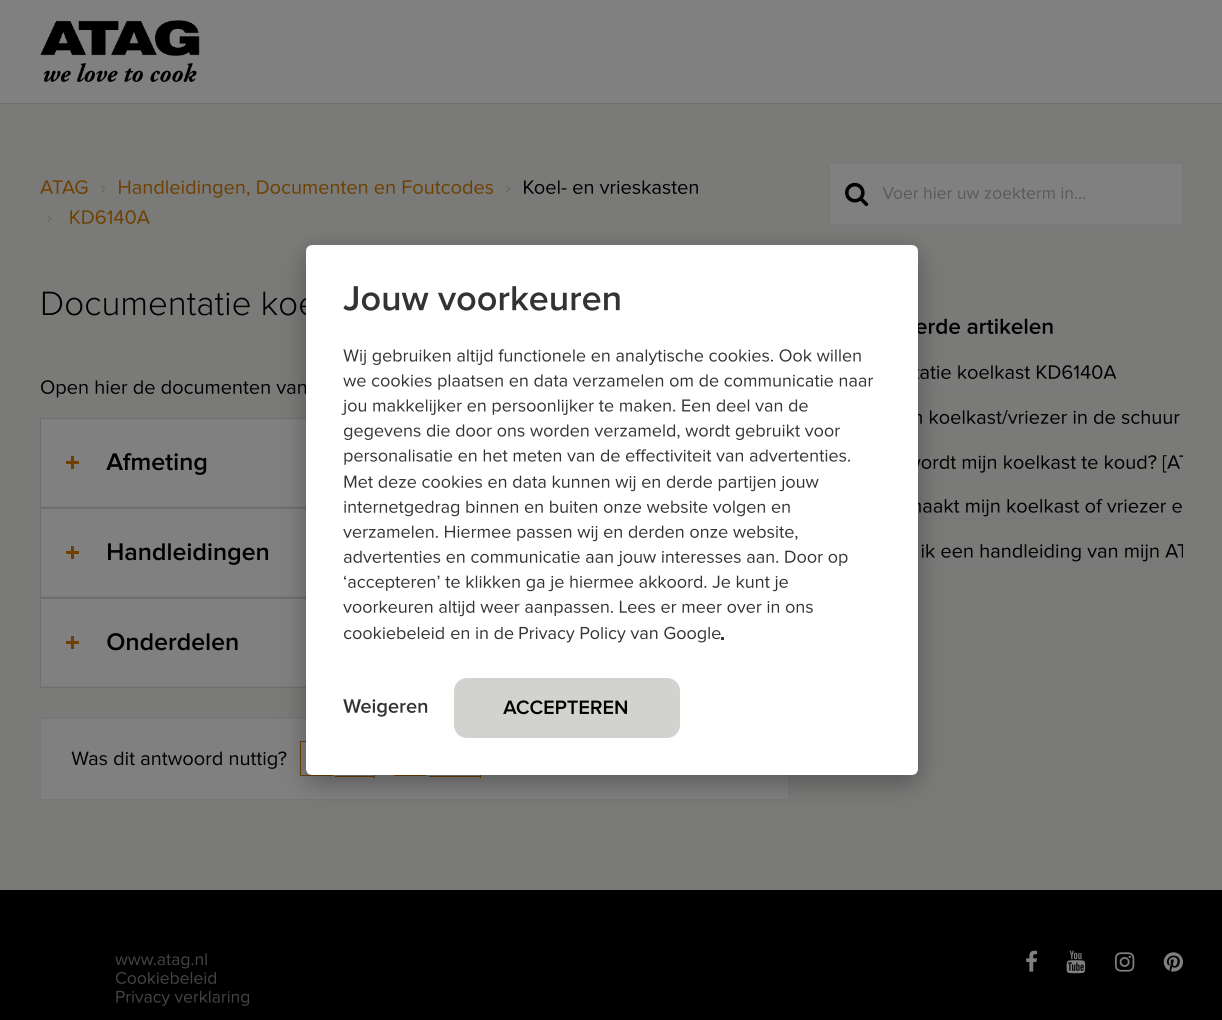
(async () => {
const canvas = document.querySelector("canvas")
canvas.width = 1222
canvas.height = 1020
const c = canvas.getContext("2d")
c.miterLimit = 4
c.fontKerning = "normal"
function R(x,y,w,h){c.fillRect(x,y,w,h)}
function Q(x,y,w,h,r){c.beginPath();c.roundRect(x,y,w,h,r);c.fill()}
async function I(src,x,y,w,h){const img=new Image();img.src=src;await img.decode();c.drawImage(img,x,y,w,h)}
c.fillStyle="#7a7a79"
R(0,0,1222,1020)
c.fillStyle="#0000001a"
c.filter="blur(0.5px)"
c.beginPath()
c.rect(-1,-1,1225,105)
c.fill()
c.filter="none"
c.fillStyle="#808080"
R(0,0,1222,103)
await I("1.png",40,20,160,62)
await I("2.png",40,180,48,14)
await I("3.png",101,185,4,8)
await I("4.png",119,180,375,18)
await I("3.png",506,185,4,8)
await I("5.png",524,180,174,14)
await I("6.png",47,215,5,8)
await I("7.png",70,210,80,14)
c.beginPath()
c.rect(829.5,163.5,353,61)
c.fill()
c.strokeStyle="#767778"
c.stroke()
await I("8.png",883,187,202,12)
await I("9.png",845,182,24,25)
await I("10.png",42,291,264,25)
await I("11.png",41,380,265,18)
c.strokeStyle="#6f6f6f"
c.strokeRect(40.5,418.5,748,89)
R(41,419,265,87)
c.fillStyle="#6e4000"
R(66,461,13,3)
R(71,456,3,13)
await I("12.png",106,453,101,22)
c.strokeRect(40.5,508.5,748,89)
c.fillStyle="#808080"
R(41,509,265,87)
c.fillStyle="#6e4000"
R(66,551,13,3)
R(71,546,3,13)
await I("13.png",108,543,161,22)
c.strokeRect(40.5,598.5,748,89)
c.fillStyle="#808080"
R(41,599,265,87)
c.fillStyle="#6e4000"
R(66,641,13,3)
R(71,636,3,13)
await I("14.png",107,633,131,18)
c.fillStyle="#808080"
c.beginPath()
c.rect(40.5,718.5,748,81)
c.fill()
c.strokeStyle="#767778"
c.stroke()
c.fillStyle="#6e4000"
R(300,741,6,1)
await I("15.png",71,751,216,18)
R(300,775,33,1)
R(300,741,1,35)
R(374,775,1,3)
R(394,775,32,1)
R(480,775,1,3)
R(335,776,40,1)
R(429,776,52,1)
await I("16.png",918,318,135,16)
await I("17.png",918,365,199,14)
c.fillStyle="#767778"
R(918,384,198,1)
await I("18.png",918,410,262,15)
R(918,429,265,1)
await I("19.png",918,455,265,18)
R(918,474,265,1)
await I("20.png",918,499,264,18)
R(918,518,265,1)
await I("21.png",921,544,262,18)
R(918,563,265,1)
c.fillStyle="#000"
R(0,890,1222,130)
await I("22.png",115,953,92,16)
await I("23.png",115,971,101,13)
await I("24.png",116,990,133,16)
await I("25.png",1026,950,12,22)
await I("26.png",1066,950,20,24)
await I("27.png",1115,952,20,20)
await I("28.png",1163,952,20,20)
c.fillStyle="#0000004d"
c.filter="blur(12.5px)"
c.beginPath()
c.roundRect(306,253,612,530,6)
c.fill()
c.filter="none"
c.fillStyle="#fff"
Q(306,245,612,530,6)
await I("29.png",343,286,277,25)
await I("30.png",343,349,518,16)
await I("31.png",343,374,530,16)
await I("32.png",341,399,467,16)
await I("33.png",344,424,496,16)
await I("34.png",344,449,506,16)
await I("35.png",344,475,475,17)
await I("36.png",344,500,446,17)
await I("37.png",343,525,455,17)
await I("38.png",344,550,504,17)
await I("39.png",344,575,444,17)
await I("40.png",343,600,470,17)
await I("41.png",344,626,100,14)
await I("42.png",451,626,63,14)
await I("43.png",519,626,202,17)
c.fillStyle="#373737"
R(721,637,3,3)
await I("44.png",343,699,85,18)
c.fillStyle="#d2d2cf"
Q(454,678,226,60,13)
await I("45.png",503,700,124,15)
})()
